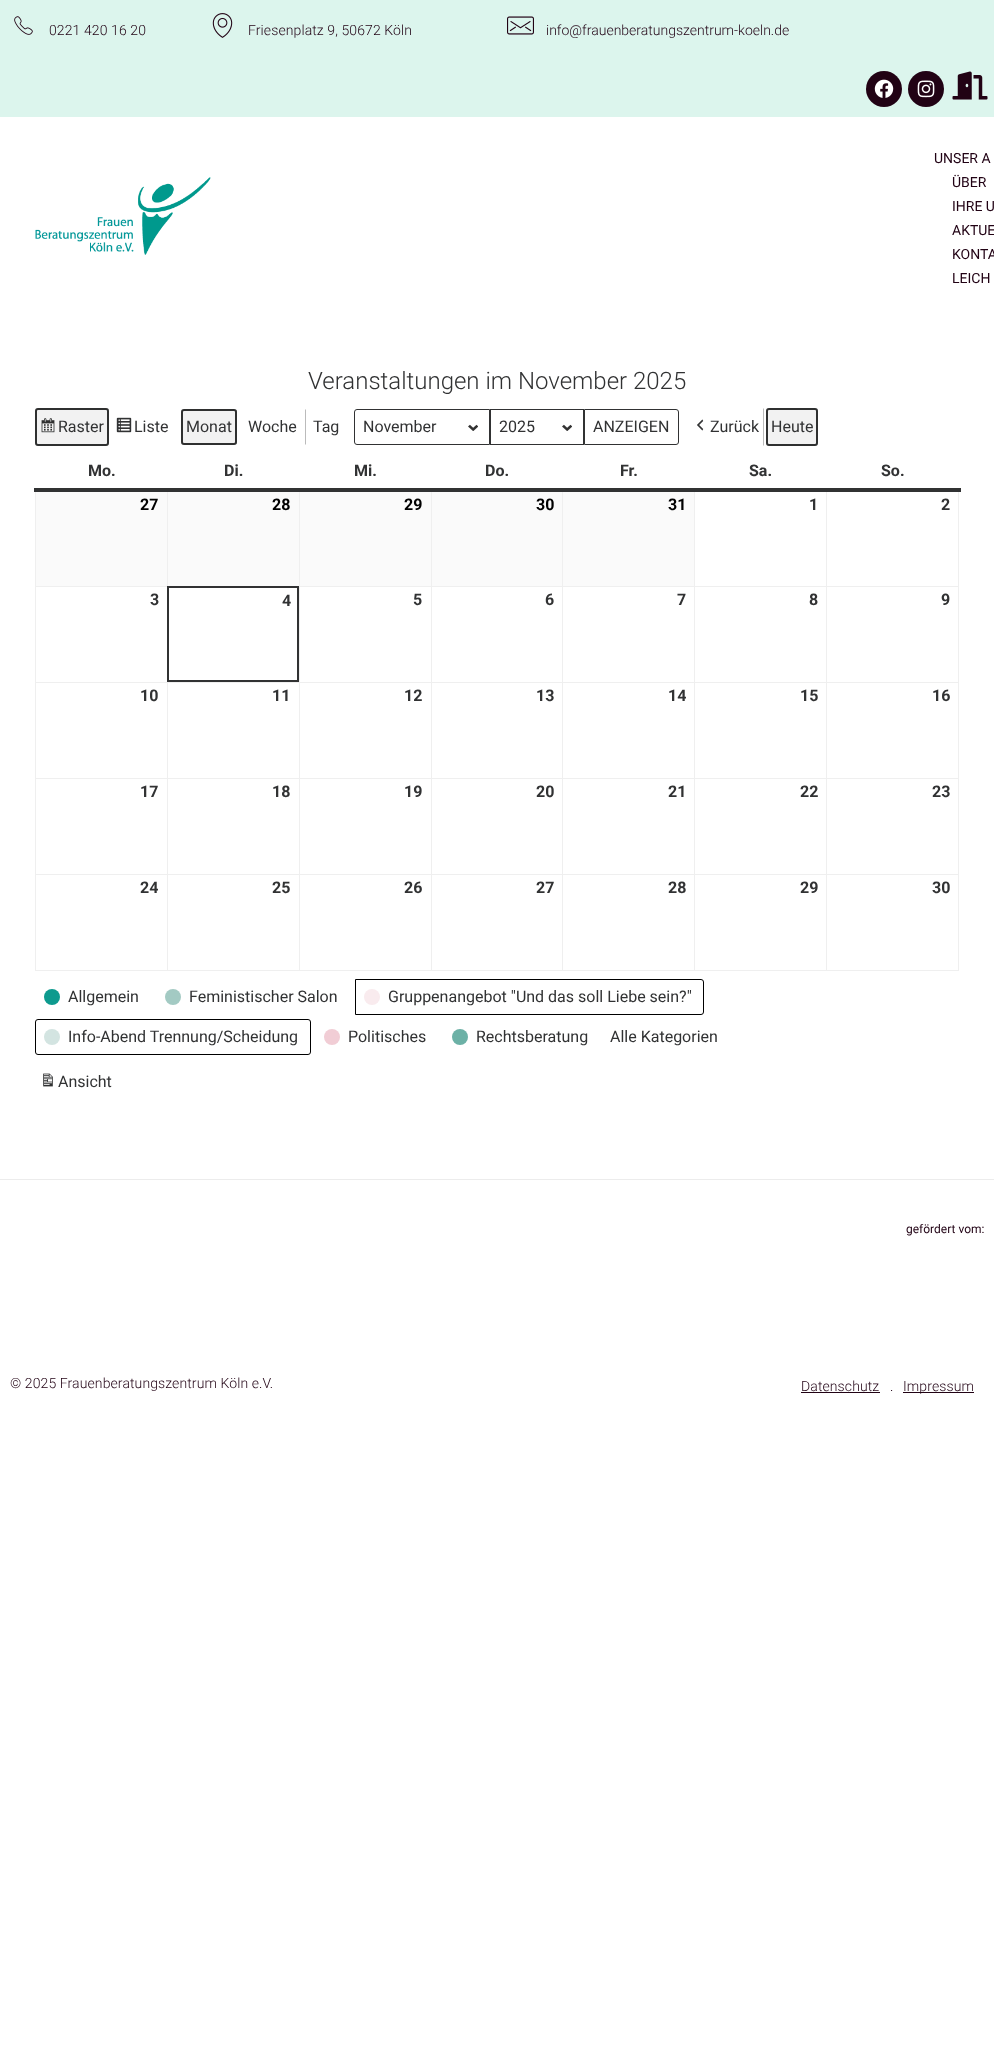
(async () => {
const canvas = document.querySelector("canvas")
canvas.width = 994
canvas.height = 2051
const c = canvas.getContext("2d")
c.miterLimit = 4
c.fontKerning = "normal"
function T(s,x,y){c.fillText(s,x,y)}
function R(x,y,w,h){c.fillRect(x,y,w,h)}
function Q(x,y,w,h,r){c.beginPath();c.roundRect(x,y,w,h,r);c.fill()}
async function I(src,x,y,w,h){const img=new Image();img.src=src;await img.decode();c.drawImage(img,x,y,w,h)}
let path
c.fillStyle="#fff"
R(0,0,994,2051)
c.fillStyle="#dcf5ed"
R(0,0,994,117)
await I("1.png",14,16,19,19)
c.letterSpacing="0.1px"
c.font="300 14px Roboto"
c.fillStyle="#210214"
T("0221 420 16 20",49,35)
await I("2.png",212,13,21,25)
T("Friesenplatz 9, 50672 Köln",248,35)
await I("3.png",507,16,27,19)
c.letterSpacing="0px"
T("info@frauenberatungszentrum-koeln.de",546,35)
c.beginPath()
c.arc(884,89,18,0,7)
c.fill()
await I("4.png",874,79,20,19)
c.beginPath()
c.arc(926,89,18,0,7)
c.fill()
await I("5.png",917,80,18,18)
await I("6.png",952,71,36,29)
await I("7.png",35,177,176,78)
c.font="14px Roboto"
T("UNSER A",934,163)
T("ÜBER",952,187)
T("IHRE U",952,211)
T("AKTUE",952,235)
T("KONTA",952,259)
T("LEICH",952,283)
c.font="300 24px Roboto"
c.fillStyle="#313233"
T("Veranstaltungen im November 2025",308,389)
c.fillStyle="#f2f2f2"
Q(35,408,74,38,3)
await I("8.png",41,418,14,15)
c.beginPath()
c.roundRect(36,409,72,36,2)
c.strokeStyle="#2f3030"
c.lineWidth=2
c.stroke()
c.font="16px Roboto"
c.fillStyle="#313233"
T("Raster",58,432)
await I("9.png",116,417,16,16)
T("Liste",134,432)
c.fillStyle="#f2f2f2"
Q(181,409,56,36,3)
path = new Path2D("M236 410c0 .5 .5 1.5 .5 2v30c0 .5-.5 1.5-.5 2")
c.strokeStyle="#b2b2b2"
c.lineWidth=1
c.stroke(path)
c.beginPath()
c.roundRect(182,410,54,34,2)
c.strokeStyle="#2f3030"
c.lineWidth=2
c.stroke()
c.fillStyle="#313233"
T("Monat",186,432)
c.fillStyle="#bbb"
path = new Path2D("M306 409v36l-1-1v-34z")
c.fill(path)
c.fillStyle="#313233"
T("Woche",248,432)
T("Tag",313,432)
await I("10.png",468,424,10,7)
c.beginPath()
c.roundRect(354.5,409.5,135,35,[2.5,0,0,2.5])
c.strokeStyle="#313233"
c.lineWidth=1
c.stroke()
T("November",363,432)
await I("10.png",562,424,10,7)
c.strokeRect(490.5,409.5,93,35)
T("2025",499,432)
c.beginPath()
c.roundRect(584.5,409.5,94,35,[0,2.5,2.5,0])
c.stroke()
T("ANZEIGEN",593,432)
c.fillStyle="#bbb"
path = new Path2D("M764 408l-1 1v36l1 1z")
c.fill(path)
await I("11.png",697,419,7,12)
c.fillStyle="#313233"
T("Zurück",710,432)
c.fillStyle="#f2f2f2"
Q(766,408,52,38,3)
c.beginPath()
c.roundRect(767,409,50,36,2)
c.strokeStyle="#2f3030"
c.lineWidth=2
c.stroke()
c.fillStyle="#313233"
T("Heute",771,432)
c.fillStyle="#efefef"
R(35,586,133,1)
R(167,490,1,97)
R(826,586,133,1)
R(826,682,133,1)
R(826,778,133,1)
R(826,874,133,1)
R(958,874,1,97)
R(826,970,133,1)
R(826,874,1,97)
R(694,874,133,1)
R(826,778,1,97)
R(694,778,133,1)
R(826,682,1,97)
R(694,682,133,1)
R(826,586,1,97)
R(694,586,133,1)
R(694,970,133,1)
R(694,874,1,97)
R(562,874,133,1)
R(694,778,1,97)
R(562,778,133,1)
R(694,682,1,97)
R(562,682,133,1)
R(694,586,1,97)
R(562,586,133,1)
R(562,970,133,1)
R(562,874,1,97)
R(431,874,132,1)
R(562,778,1,97)
R(431,778,132,1)
R(562,682,1,97)
R(431,682,132,1)
R(562,586,1,97)
R(431,586,132,1)
R(431,970,132,1)
R(431,874,1,97)
R(299,874,133,1)
R(431,778,1,97)
R(299,778,133,1)
R(431,682,1,97)
R(299,682,133,1)
R(431,586,1,97)
R(299,586,133,1)
R(431,490,1,97)
R(562,490,1,97)
R(694,490,1,97)
R(826,490,1,97)
R(299,970,133,1)
R(299,874,1,97)
R(167,874,133,1)
R(299,778,1,97)
R(167,778,133,1)
R(299,682,1,97)
R(167,682,133,1)
R(167,970,133,1)
R(167,874,1,97)
R(35,874,133,1)
R(167,778,1,97)
R(35,778,133,1)
R(167,682,1,97)
R(35,682,133,1)
R(35,970,133,1)
R(35,874,1,97)
R(35,778,1,97)
R(35,682,1,97)
R(35,490,1,193)
R(299,490,1,193)
R(958,778,1,97)
R(958,682,1,97)
R(958,490,1,193)
c.fillStyle="#313233"
R(34,488,927,4)
c.font="bold 16px Roboto"
T("Mo.",88,476)
T("Di.",224,476)
T("Mi.",354,476)
T("Do.",485,476)
T("Fr.",620,476)
T("Sa.",749,476)
T("So.",881,476)
c.fillStyle="#fafafa"
R(36,492,131,94)
c.fillStyle="#000"
T("27",140,510)
c.fillStyle="#fafafa"
R(168,492,131,94)
c.fillStyle="#000"
T("28",272,510)
c.fillStyle="#fafafa"
R(300,492,131,94)
c.fillStyle="#000"
T("29",404,510)
c.fillStyle="#fafafa"
R(432,492,130,94)
c.fillStyle="#000"
T("30",536,510)
c.fillStyle="#fafafa"
R(563,492,131,94)
c.fillStyle="#000"
T("31",668,510)
c.fillStyle="#313233"
T("1",809,510)
T("2",941,510)
T("3",150,605)
c.strokeStyle="#313233"
c.strokeRect(168,587,130,94)
T("4",282,606)
T("5",413,605)
T("6",545,605)
T("7",677,605)
T("8",809,605)
T("9",941,605)
T("10",140,701)
T("11",272,701)
T("12",404,701)
T("13",536,701)
T("14",668,701)
T("15",800,701)
T("16",932,701)
T("17",140,797)
T("18",272,797)
T("19",404,797)
T("20",536,797)
T("21",668,797)
T("22",800,797)
T("23",932,797)
T("24",140,893)
T("25",272,893)
T("26",404,893)
T("27",536,893)
T("28",668,893)
T("29",800,893)
T("30",932,893)
c.fillStyle="#0d9a8e"
c.beginPath()
c.arc(52,997,8,0,7)
c.fill()
c.font="16px Roboto"
c.fillStyle="#313233"
T("Allgemein",68,1002)
c.fillStyle="#a3cac3"
c.beginPath()
c.arc(173,997,8,0,7)
c.fill()
c.fillStyle="#313233"
T("Feministischer Salon",189,1002)
c.beginPath()
c.roundRect(355.5,979.5,348,35,[0,2.5,2.5,0])
c.strokeStyle="#000"
c.lineWidth=1
c.stroke()
c.fillStyle="#f9ebee"
c.beginPath()
c.arc(372,997,8,0,7)
c.fill()
c.fillStyle="#313233"
T("Gruppenangebot \"Und das soll Liebe sein?\"",388,1002)
c.beginPath()
c.roundRect(35.5,1019.5,275,35,2.5)
c.stroke()
c.fillStyle="#d3e4e1"
c.beginPath()
c.arc(52,1037,8,0,7)
c.fill()
c.fillStyle="#313233"
T("Info-Abend Trennung/Scheidung",68,1042)
c.fillStyle="#f1cdd5"
c.beginPath()
c.arc(332,1037,8,0,7)
c.fill()
c.fillStyle="#313233"
T("Politisches",348,1042)
c.fillStyle="#6cb1a6"
c.beginPath()
c.arc(460,1037,8,0,7)
c.fill()
c.fillStyle="#313233"
T("Rechtsberatung",476,1042)
T("Alle Kategorien",610,1042)
await I("12.png",43,1073,10,14)
T("Ansicht",58,1087)
c.fillStyle="#ececec"
R(0,1179,994,1)
c.font="12px Roboto"
c.fillStyle="#210214"
T("gefördert vom:",906,1233)
c.letterSpacing="0.1px"
c.font="300 14px Roboto"
T("© 2025 Frauenberatungszentrum Köln e.V.",10,1388)
T("Datenschutz",801,1391)
R(801,1392,79,1)
T(".",890,1391)
R(903,1392,71,1)
T("Impressum",903,1391)
})()
